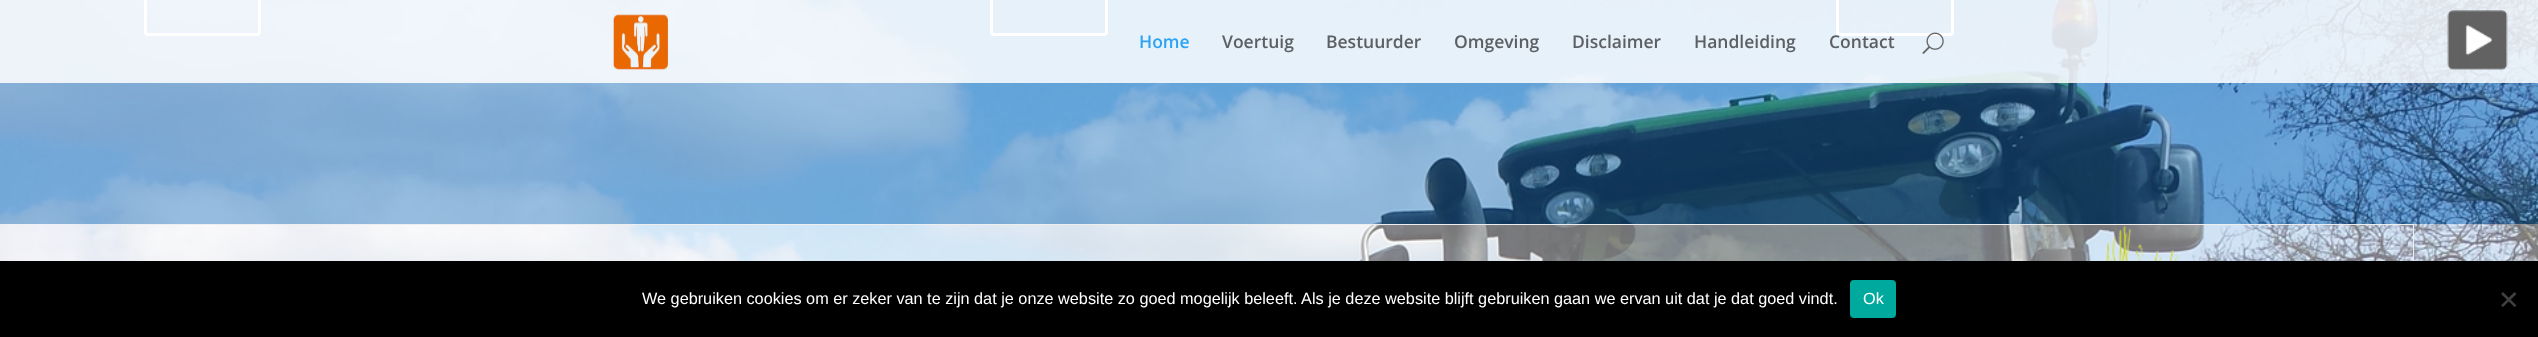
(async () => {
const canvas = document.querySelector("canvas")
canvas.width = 2538
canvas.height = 337
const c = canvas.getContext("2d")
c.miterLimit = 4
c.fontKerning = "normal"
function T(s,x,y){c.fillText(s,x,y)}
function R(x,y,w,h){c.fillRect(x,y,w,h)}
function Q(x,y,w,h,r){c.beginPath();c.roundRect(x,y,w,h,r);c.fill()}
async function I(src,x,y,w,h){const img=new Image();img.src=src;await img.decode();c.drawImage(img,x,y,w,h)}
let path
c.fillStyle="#fff"
R(0,0,2538,337)
await I("1.png",0,0,2538,261)
c.fillStyle="#1e73be70"
R(0,0,846,224)
c.beginPath()
c.roundRect(145.5,-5.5,114,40,2.5)
c.strokeStyle="#fff"
c.lineWidth=3
c.stroke()
R(846,0,847,224)
c.beginPath()
c.roundRect(991.5,-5.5,115,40,2.5)
c.stroke()
R(1693,0,845,224)
c.beginPath()
c.roundRect(1837.5,-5.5,115,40,2.5)
c.stroke()
c.fillStyle="#ffffff70"
R(0,224,2538,37)
c.fillStyle="#eee"
R(125,224,2289,1)
R(2413,224,1,37)
R(125,224,1,37)
await I("2.png",2106,226,73,35)
c.fillStyle="#ffffffd9"
R(0,0,2538,83)
await I("3.png",613,14,56,56)
c.font="600 17.5px Open Sans"
c.fillStyle="#2ea3f2"
T("Home",1139,48)
c.fillStyle="#5c6064"
T("Voertuig",1222,48)
T("Bestuurder",1326,48)
T("Omgeving",1454,48)
T("Disclaimer",1572,48)
T("Handleiding",1694,48)
T("Contact",1829,48)
await I("4.png",1922,32,22,22)
await I("5.png",2447,10,61,60)
c.fillStyle="#000"
R(0,261,2538,76)
c.font="16.25px Liberation Sans"
c.fillStyle="#fff"
T("We gebruiken cookies om er zeker van te zijn dat je onze website zo goed mogelijk beleeft. Als je deze website blijft gebruiken gaan we ervan uit dat je dat goed vindt.",642,304)
c.fillStyle="#00a99d"
Q(1850,280,46,38,4)
c.fillStyle="#fff"
T("Ok",1863,304)
c.fillStyle="#404040"
path = new Path2D("M2514.5 292l2 2l-13.5 13l-2-1.5z")
c.fill(path)
path = new Path2D("M2501 294l2-2l13.5 13.5l-2 1.5z")
c.fill(path)
})()
